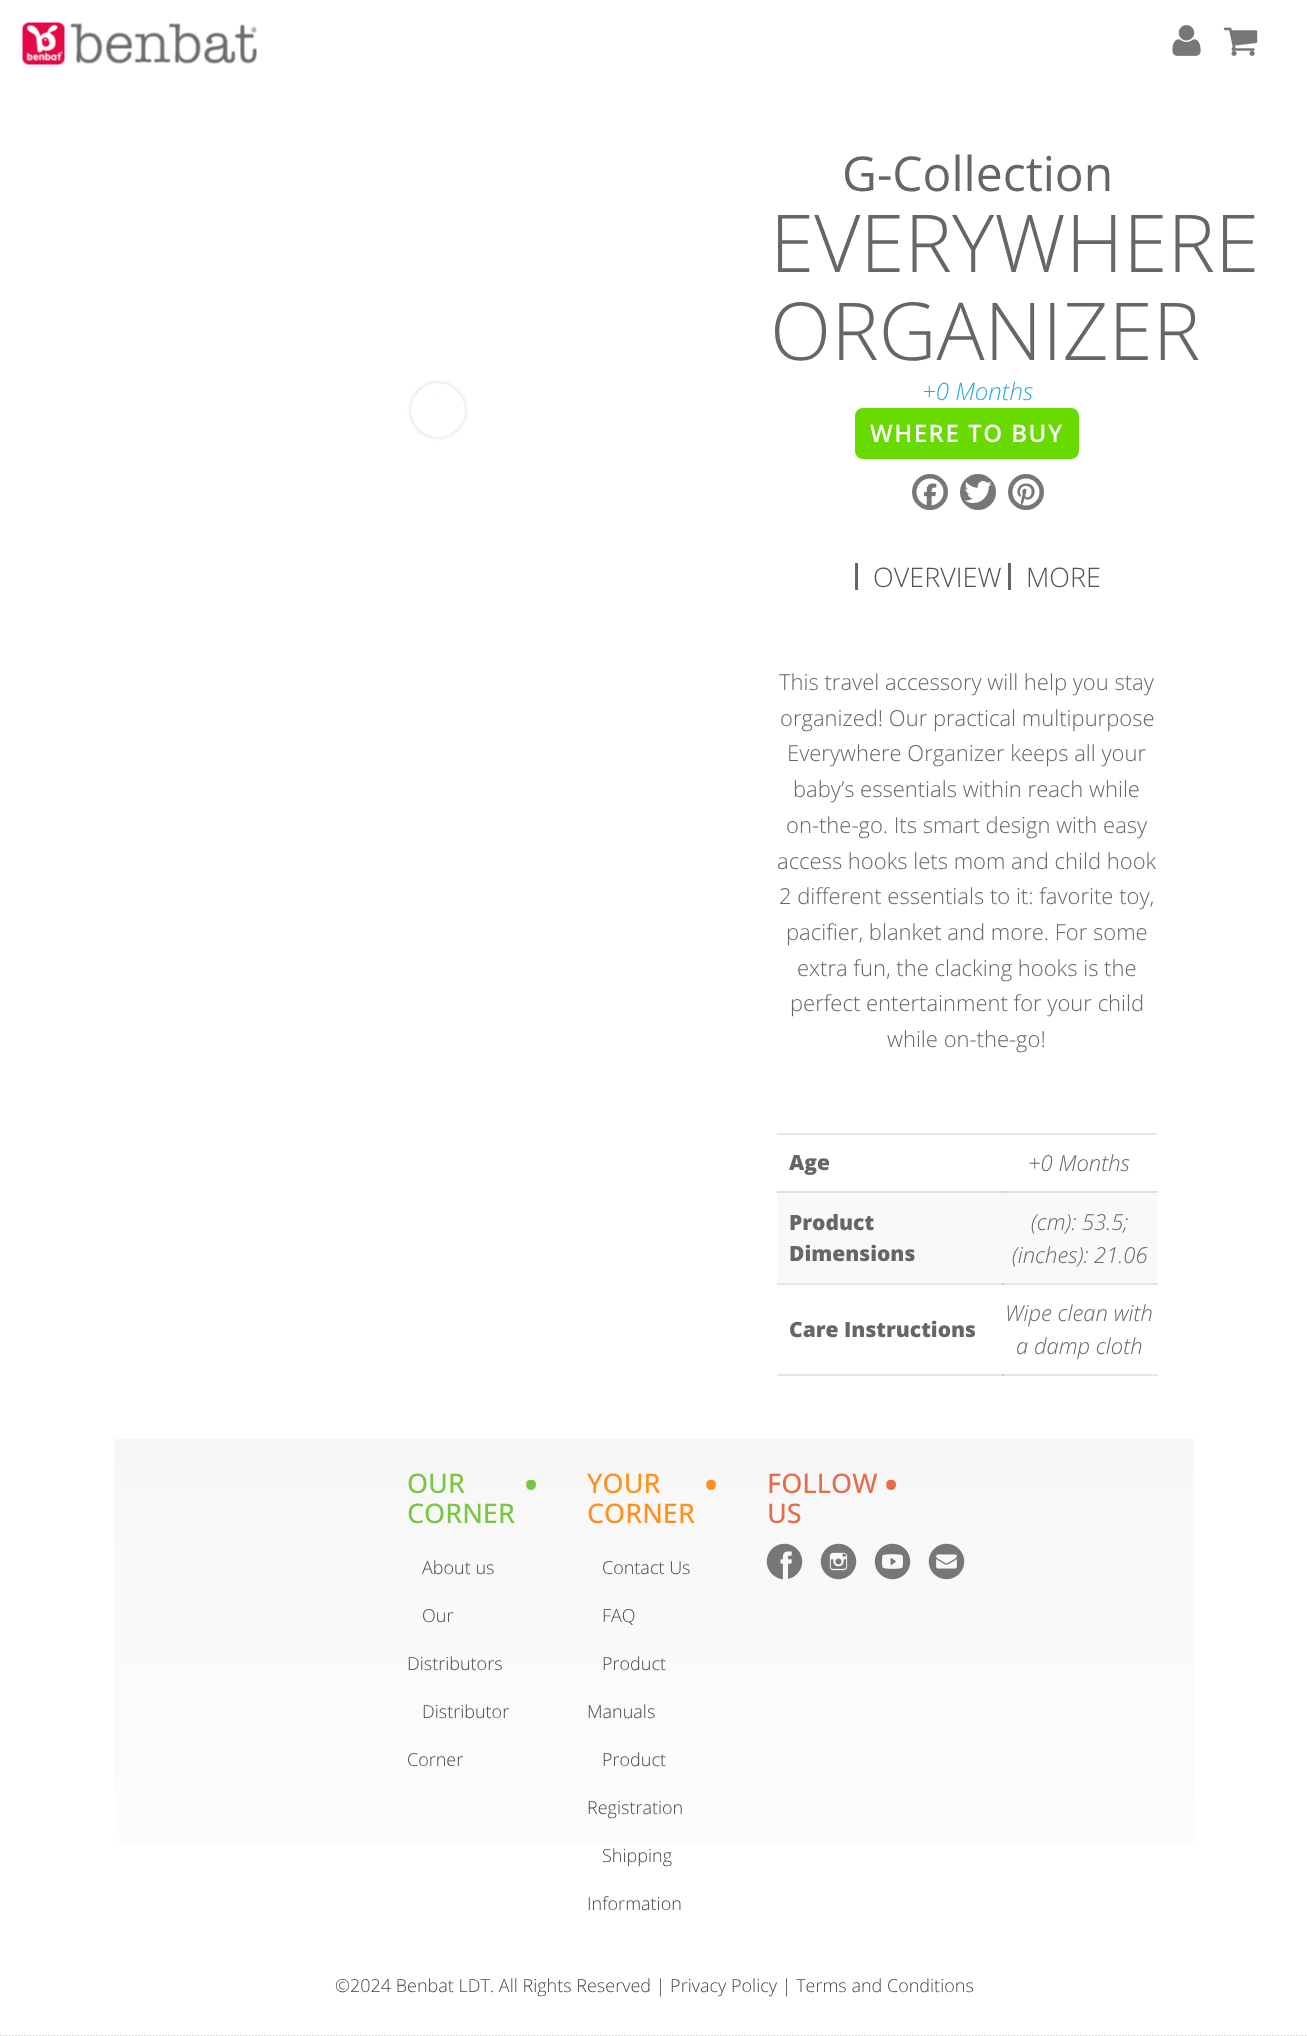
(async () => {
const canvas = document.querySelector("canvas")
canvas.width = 1307
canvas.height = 2036
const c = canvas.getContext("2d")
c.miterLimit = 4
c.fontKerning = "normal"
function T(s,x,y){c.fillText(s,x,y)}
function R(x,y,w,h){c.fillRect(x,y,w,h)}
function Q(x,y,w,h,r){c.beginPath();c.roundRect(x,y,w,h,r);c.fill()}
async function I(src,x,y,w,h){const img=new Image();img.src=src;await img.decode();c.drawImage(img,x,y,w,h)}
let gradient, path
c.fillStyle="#fff"
R(0,0,1307,2036)
c.fillStyle="#e6e6e6"
R(1157,1191,1,2)
R(777,1283,381,2)
R(777,1374,381,2)
path = new Path2D("M0 2036h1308")
c.strokeStyle="#c2c2c2"
c.lineWidth=1.5
c.setLineDash([1.5,1.5])
c.stroke(path)
await I("1.png",22,22,43,43)
await I("2.png",70,23,187,41)
await I("3.png",1172,25,29,31)
await I("4.png",1223,27,35,29)
c.fillStyle="#1a1a1a33"
c.filter="blur(2px)"
c.beginPath()
c.roundRect(411,383,54,54,27)
c.fill()
c.filter="none"
c.fillStyle="#fff"
c.beginPath()
c.arc(438,410,27,0,7)
c.fill()
await I("5.png",436,396,2,4)
c.font="48px Open Sans"
c.fillStyle="#666"
T("G-Collection",842,191)
c.font="300 80px Open Sans"
T("EVERYWHERE",770,272)
T("ORGANIZER",770,360)
c.font="italic 300 24px Open Sans"
c.fillStyle="#29abe2"
T("+0 Months",922,400)
c.fillStyle="#68da00"
Q(855,408,224,51,8)
c.letterSpacing="1.5px"
c.font="600 24px Open Sans"
c.fillStyle="#fff"
T("WHERE TO BUY",870,442)
c.fillStyle="#777"
c.beginPath()
c.arc(930,492,18,0,7)
c.fill()
await I("6.png",916,478,28,28)
c.beginPath()
c.arc(978,492,18,0,7)
c.fill()
await I("7.png",964,481,28,22)
c.beginPath()
c.arc(1026,492,18,0,7)
c.fill()
await I("8.png",1012,478,28,28)
c.fillStyle="#666"
R(855,563,3,27)
c.letterSpacing="0px"
c.font="300 27px Open Sans"
c.fillStyle="#515151"
T("OVERVIEW",873,587)
c.fillStyle="#666"
R(1008,563,3,27)
c.fillStyle="#515151"
T("MORE",1026,587)
c.font="300 22px Open Sans"
c.fillStyle="#666"
T("This travel accessory will help you stay",779,690)
T("organized! Our practical multipurpose",780,726)
T("Everywhere Organizer keeps all your",787,761)
T("baby’s essentials within reach while",793,797)
T("on-the-go. Its smart design with easy",786,833)
T("access hooks lets mom and child hook",777,869)
T("2 different essentials to it: favorite toy,",779,904)
T("pacifier, blanket and more. For some",786,940)
T("extra fun, the clacking hooks is the",797,976)
T("perfect entertainment for your child",790,1011)
T("while on-the-go!",887,1047)
c.fillStyle="#e6e6e6"
R(777,1133,380,2)
c.font="800 21px Open Sans"
c.fillStyle="#666"
T("Age",789,1170)
c.font="italic 300 22px Open Sans"
T("+0 Months",1028,1171)
c.fillStyle="#f9f9f9"
R(777,1193,380,90)
c.fillStyle="#e0e0e0"
R(777,1191,380,2)
c.font="800 21px Open Sans"
c.fillStyle="#666"
T("Product",789,1230)
T("Dimensions",789,1261)
c.fillStyle="#cacaca"
R(1002,1191,2,2)
c.fillStyle="#cfcfcf"
R(1002,1283,2,2)
c.font="italic 300 22px Open Sans"
c.fillStyle="#666"
T("(cm): 53.5;",1031,1230)
T("(inches): 21.06",1012,1263)
c.font="800 21px Open Sans"
T("Care Instructions",789,1337)
c.fillStyle="#cfcfcf"
R(1002,1374,2,2)
c.font="italic 300 22px Open Sans"
c.fillStyle="#666"
T("Wipe clean with",1005,1321)
T("a damp cloth",1016,1354)
gradient = c.createLinearGradient(654,1439,654,2028)
gradient.addColorStop(0,"#f7f7f7")
gradient.addColorStop(1,"#fff")
c.fillStyle = gradient
R(114,1439,1080,405)
c.font="500 27px Open Sans"
c.fillStyle="#7ac643"
T("OUR",407,1493)
c.font="500 75px Open Sans"
T("·",521,1511)
c.font="500 27px Open Sans"
T("CORNER",407,1523)
c.font="300 18px Open Sans"
c.fillStyle="#4e3f41"
T("About us",422,1574)
T("Our",422,1622)
T("Distributors",407,1670)
T("Distributor",422,1718)
T("Corner",407,1766)
c.font="500 27px Open Sans"
c.fillStyle="#ff901e"
T("YOUR",587,1493)
c.font="500 75px Open Sans"
T("·",701,1511)
c.font="500 27px Open Sans"
T("CORNER",587,1523)
c.font="300 18px Open Sans"
c.fillStyle="#4e3f41"
T("Contact Us",602,1574)
T("FAQ",602,1622)
T("Product",602,1670)
T("Manuals",587,1718)
T("Product",602,1766)
T("Registration",587,1814)
T("Shipping",602,1862)
T("Information",587,1910)
c.font="500 27px Open Sans"
c.fillStyle="#e56e4a"
T("FOLLOW",767,1493)
c.font="500 75px Open Sans"
T("·",881,1511)
c.font="500 27px Open Sans"
T("US",767,1523)
await I("9.png",766,1543,37,37)
await I("10.png",820,1543,37,37)
await I("11.png",874,1543,37,37)
await I("12.png",928,1543,37,37)
c.font="300 18px Open Sans"
c.fillStyle="#4e3f41"
T("©2024 Benbat LDT. All Rights Reserved | Privacy Policy | Terms and Conditions",335,1992)
})()
